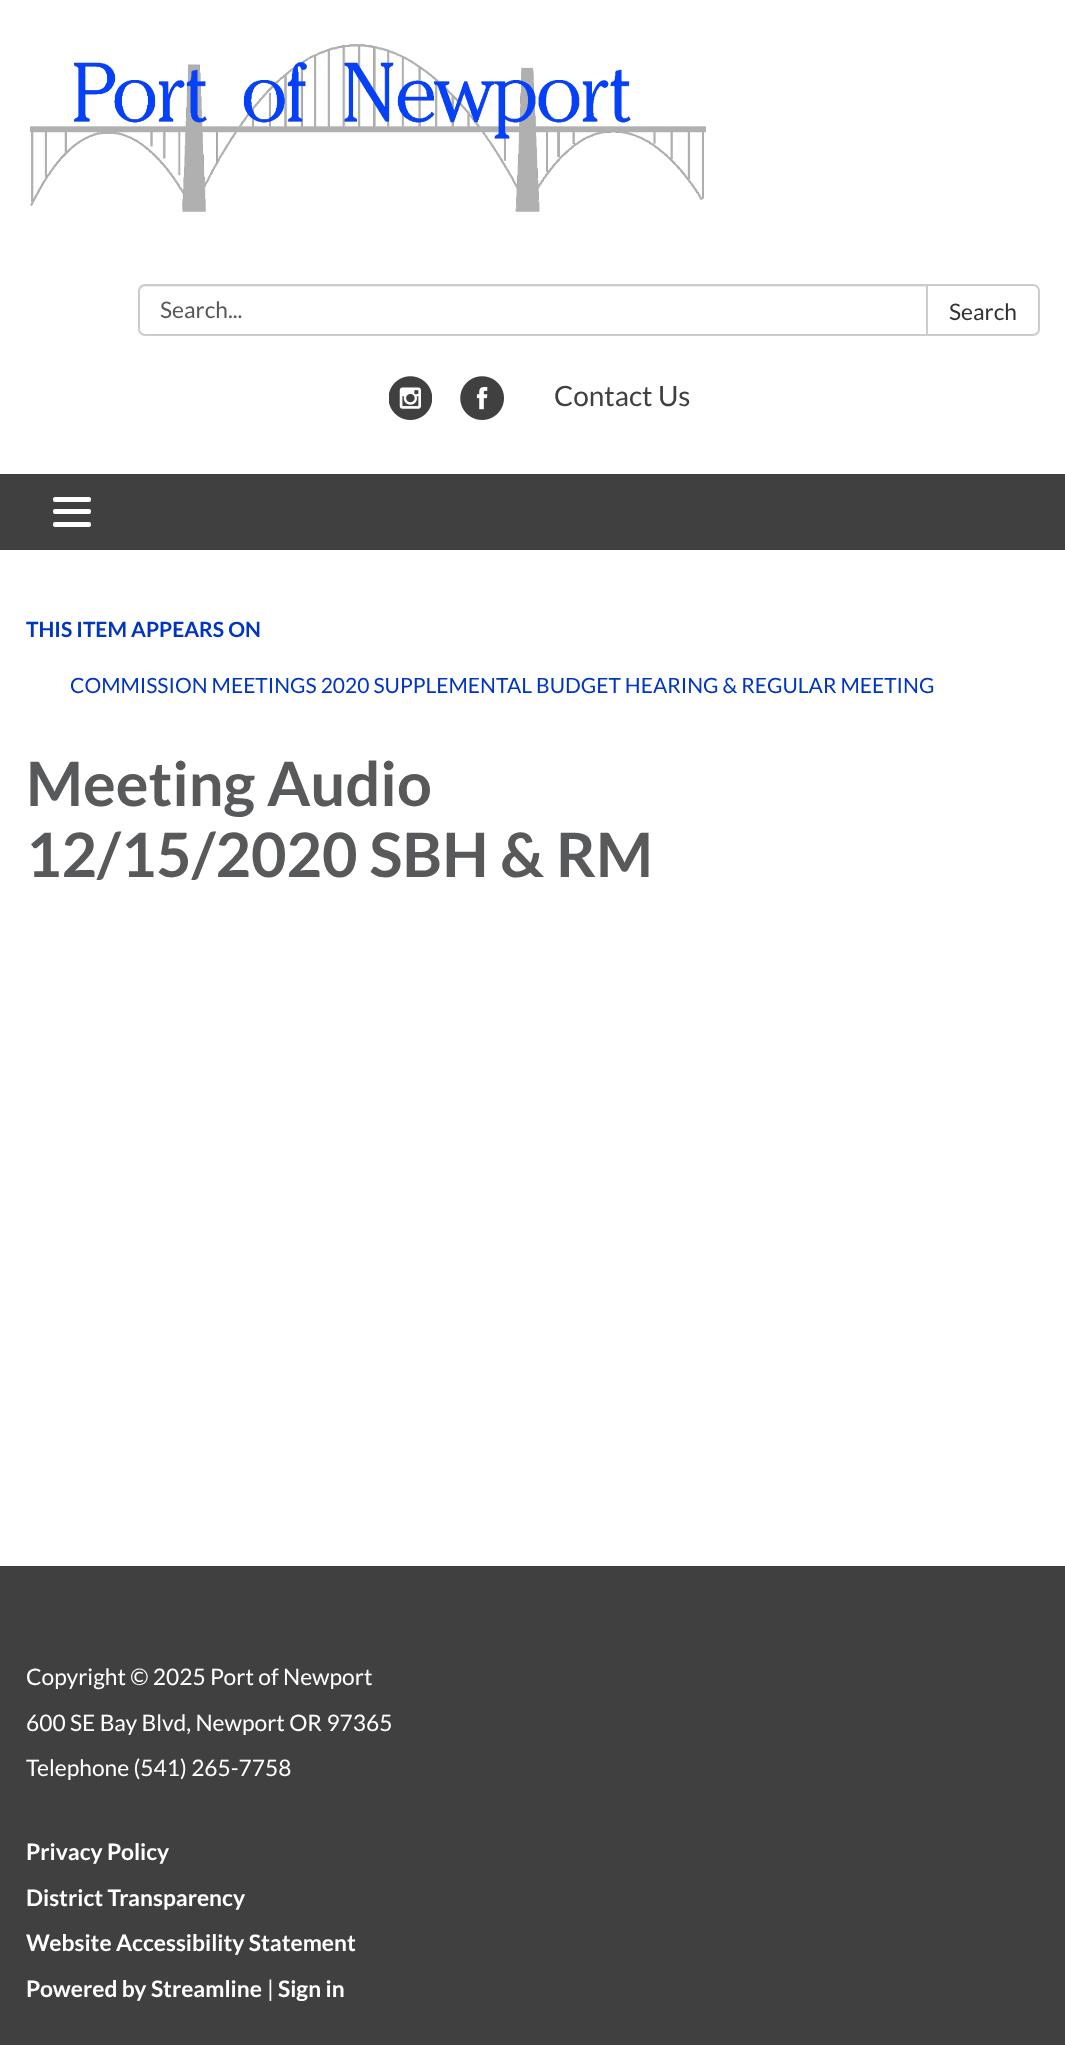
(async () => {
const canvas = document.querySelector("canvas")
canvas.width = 1065
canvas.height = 2045
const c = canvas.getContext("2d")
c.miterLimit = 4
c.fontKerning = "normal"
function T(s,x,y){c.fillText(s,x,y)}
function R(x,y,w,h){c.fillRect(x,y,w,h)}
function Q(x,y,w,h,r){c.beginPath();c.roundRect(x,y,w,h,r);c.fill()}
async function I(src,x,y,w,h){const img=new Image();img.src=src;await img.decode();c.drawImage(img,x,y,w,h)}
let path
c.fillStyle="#404041"
R(0,0,1065,2045)
c.fillStyle="#fff"
R(0,0,1065,474)
await I("1.png",30,44,676,168)
c.fillStyle="#ececec"
path = new Path2D("M145 287h781v-2h-781c-4 0-5 4-5 7c0-3 2-5 5-5z")
c.fill(path)
c.beginPath()
c.roundRect(139,285,788,50,[6,0,0,6])
c.strokeStyle="#ccc"
c.lineWidth=2
c.stroke()
c.font="22.75px Lato"
c.fillStyle="#58595b"
T("Search...",160,318)
c.fillStyle="#fff"
c.beginPath()
c.roundRect(927,285,112,50,[0,6,6,0])
c.fill()
c.stroke()
c.fillStyle="#333"
T("Search",949,320)
await I("2.png",389,376,43,44)
await I("3.png",460,376,44,44)
c.font="28px Lato"
c.fillStyle="#404041"
T("Contact Us",554,406)
c.fillStyle="#fff"
Q(53,497,38,5,2)
Q(53,509,38,5,2)
Q(53,522,38,5,2)
R(0,550,1065,1016)
c.font="bold 21px Lato"
c.fillStyle="#0034c2"
T("THIS ITEM APPEARS ON",26,637)
c.font="21px Lato"
T("COMMISSION MEETINGS 2020 SUPPLEMENTAL BUDGET HEARING & REGULAR MEETING",70,693)
c.font="bold 61.25px Lato"
c.fillStyle="#58595b"
T("Meeting Audio",26,806)
T("12/15/2020 SBH & RM",26,877)
c.font="22.75px Lato"
c.fillStyle="#fff"
T("Copyright © 2025 Port of Newport",26,1685)
T("600 SE Bay Blvd, Newport OR 97365",26,1731)
T("Telephone (541) 265-7758",26,1776)
c.font="bold 22.75px Lato"
T("Privacy Policy",26,1860)
T("District Transparency",26,1906)
T("Website Accessibility Statement",26,1951)
T("Powered by Streamline",26,1997)
c.font="22.75px Lato"
T("|",267,1997)
c.font="bold 22.75px Lato"
T("Sign in",278,1997)
})()
